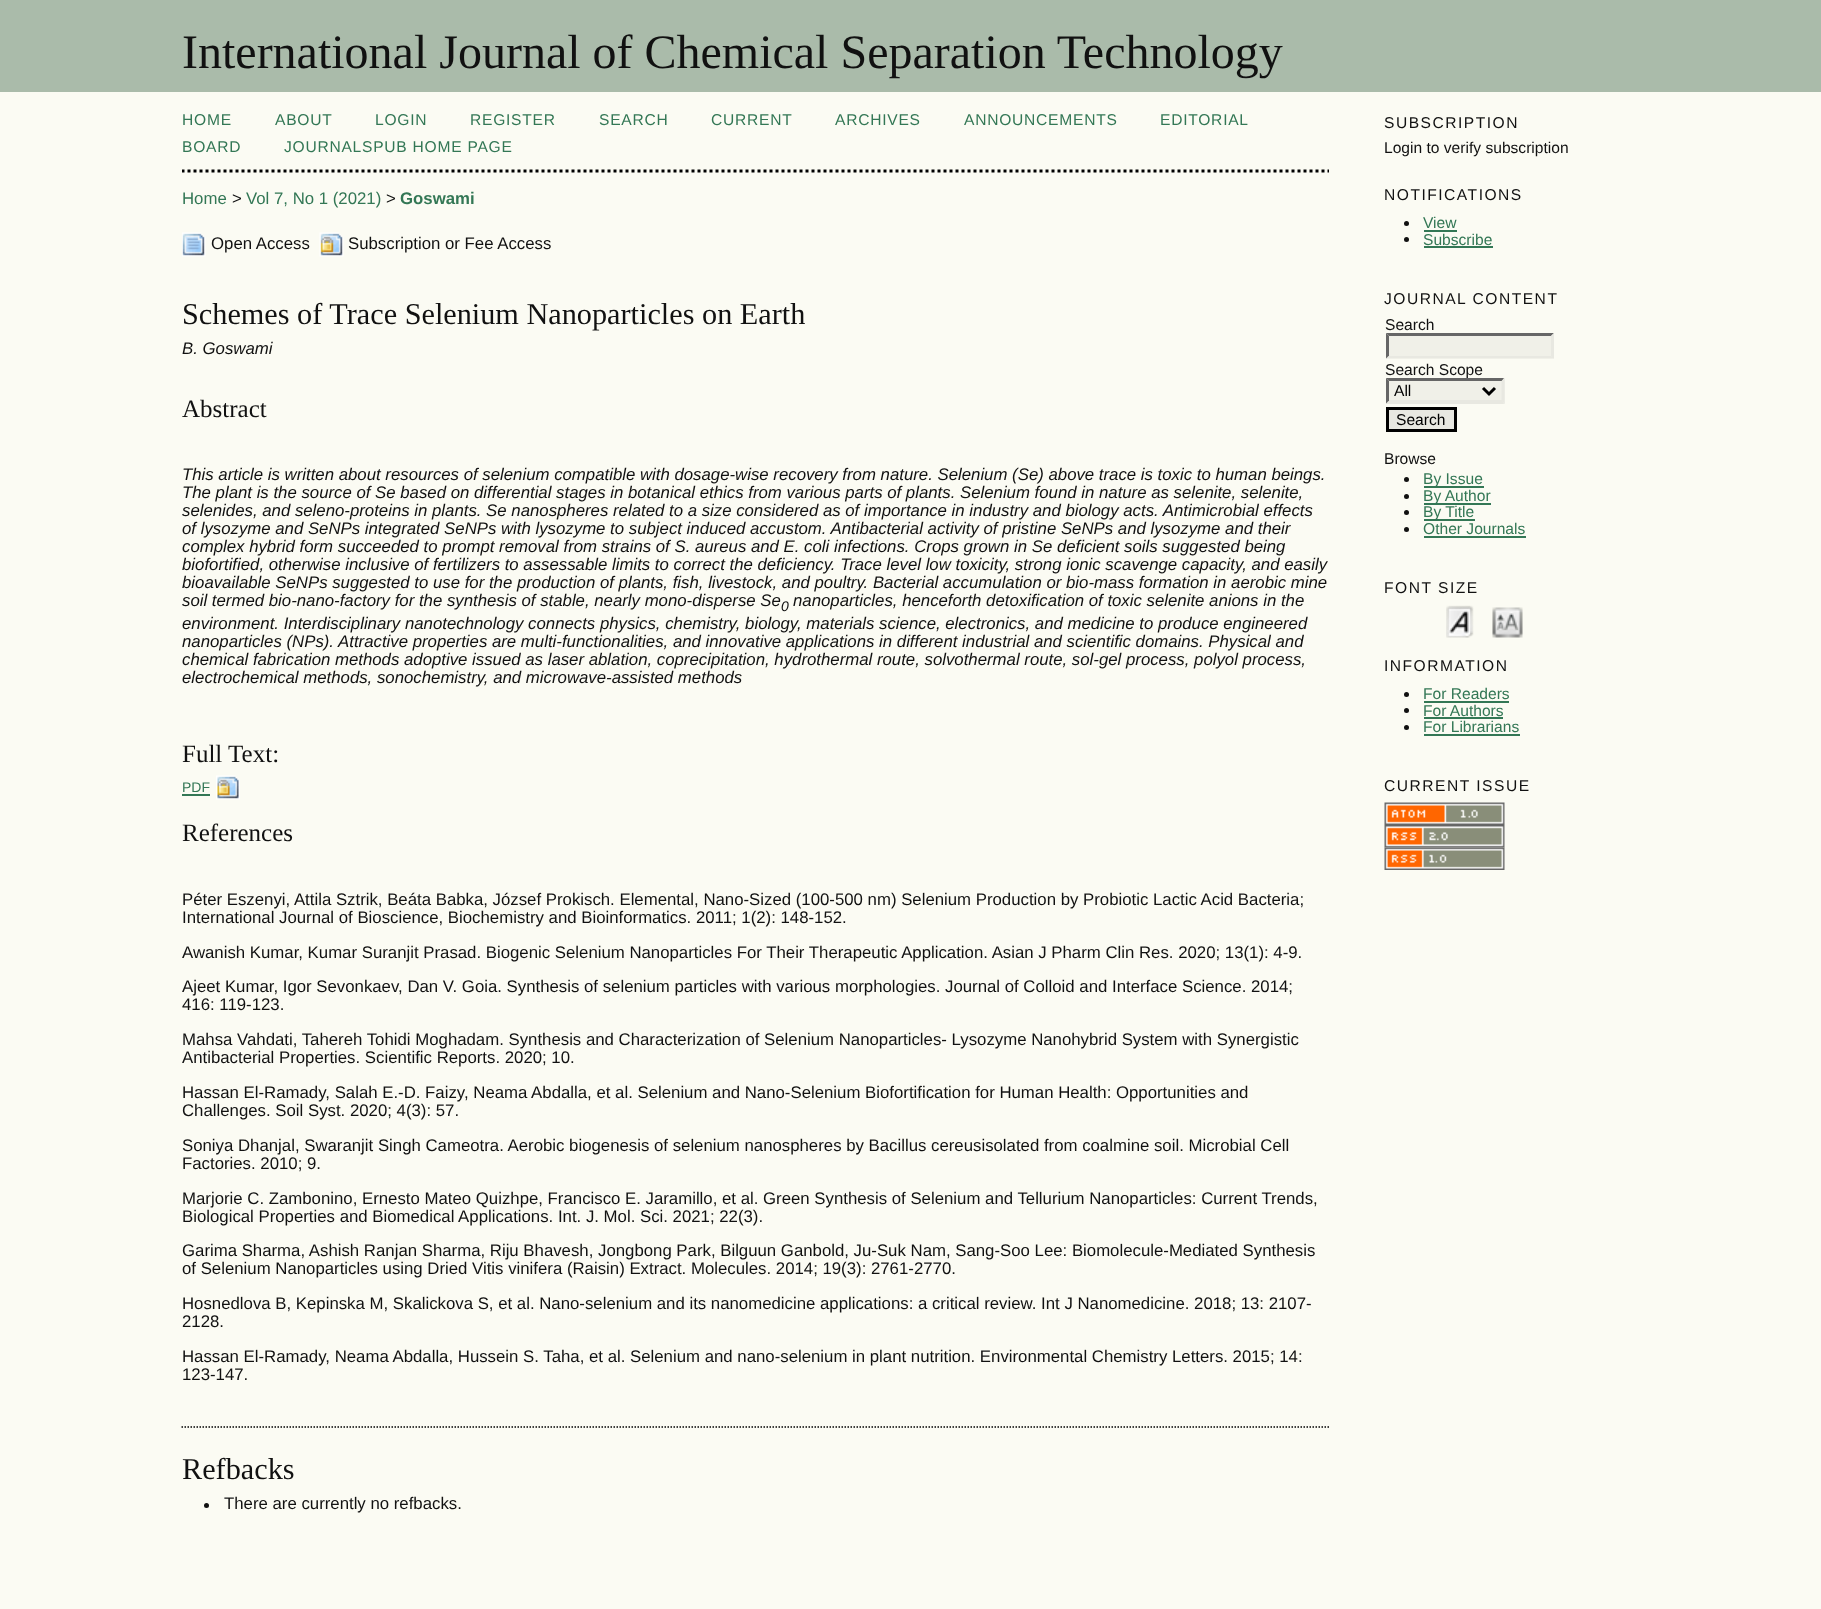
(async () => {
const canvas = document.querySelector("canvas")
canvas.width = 1821
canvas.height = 1609
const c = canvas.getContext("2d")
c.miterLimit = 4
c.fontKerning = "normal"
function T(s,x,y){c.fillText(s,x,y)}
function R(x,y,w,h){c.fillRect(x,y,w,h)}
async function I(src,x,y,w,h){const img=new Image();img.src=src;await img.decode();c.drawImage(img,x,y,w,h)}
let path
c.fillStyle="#fbfbf3"
R(0,0,1821,1609)
c.fillStyle="#aba"
R(0,0,1821,92)
c.font="48px Liberation Serif"
c.fillStyle="#111"
T("International Journal of Chemical Separation Technology",182,68)
c.save()
c.beginPath()
c.rect(182,92,1147,1482)
c.clip()
path = new Path2D("M181.5 171h1147.5")
c.strokeStyle="#000"
c.lineWidth=3
c.setLineDash([3,3])
c.stroke(path)
c.restore()
c.letterSpacing="0.75px"
c.font="15.6px Liberation Sans"
c.fillStyle="#375"
T("HOME",182,125)
T("ABOUT",275,125)
T("LOGIN",375,125)
T("REGISTER",470,125)
T("SEARCH",599,125)
T("CURRENT",711,125)
T("ARCHIVES",835,125)
T("ANNOUNCEMENTS",964,125)
T("EDITORIAL",1160,125)
T("BOARD",182,152)
T("JOURNALSPUB HOME PAGE",284,152)
c.letterSpacing="0px"
c.font="16.8px Liberation Sans"
T("Home",182,204)
c.fillStyle="#111"
T(">",232,204)
c.fillStyle="#375"
T("Vol 7, No 1 (2021)",246,204)
c.fillStyle="#111"
T(">",386,204)
c.font="bold 16.8px Liberation Sans"
c.fillStyle="#375"
T("Goswami",400,204)
await I("1.png",182,232,24,25)
c.font="16.8px Liberation Sans"
c.fillStyle="#111"
T("Open Access",211,249)
await I("2.png",319,232,25,25)
T("Subscription or Fee Access",348,249)
c.font="30.25px Liberation Serif"
T("Schemes of Trace Selenium Nanoparticles on Earth",182,324)
c.font="italic 16.8px Liberation Sans"
T("B. Goswami",182,354)
c.font="25px Liberation Serif"
T("Abstract",182,417)
c.font="italic 16.8px Liberation Sans"
T("This article is written about resources of selenium compatible with dosage-wise recovery from nature. Selenium (Se) above trace is toxic to human beings.",182,480)
T("The plant is the source of Se based on differential stages in botanical ethics from various parts of plants. Selenium found in nature as selenite, selenite,",182,498)
T("selenides, and seleno-proteins in plants. Se nanospheres related to a size considered as of importance in industry and biology acts. Antimicrobial effects",182,516)
T("of lysozyme and SeNPs integrated SeNPs with lysozyme to subject induced accustom. Antibacterial activity of pristine SeNPs and lysozyme and their",182,534)
T("complex hybrid form succeeded to prompt removal from strains of S. aureus and E. coli infections. Crops grown in Se deficient soils suggested being",182,552)
T("biofortified, otherwise inclusive of fertilizers to assessable limits to correct the deficiency. Trace level low toxicity, strong ionic scavenge capacity, and easily",182,570)
T("bioavailable SeNPs suggested to use for the production of plants, fish, livestock, and poultry. Bacterial accumulation or bio-mass formation in aerobic mine",182,588)
T("soil termed bio-nano-factory for the synthesis of stable, nearly mono-disperse Se",182,606)
c.font="italic 14px Liberation Sans"
T("0",781,611)
c.font="italic 16.8px Liberation Sans"
T("nanoparticles, henceforth detoxification of toxic selenite anions in the",793,606)
T("environment. Interdisciplinary nanotechnology connects physics, chemistry, biology, materials science, electronics, and medicine to produce engineered",182,629)
T("nanoparticles (NPs). Attractive properties are multi-functionalities, and innovative applications in different industrial and scientific domains. Physical and",182,647)
T("chemical fabrication methods adoptive issued as laser ablation, coprecipitation, hydrothermal route, solvothermal route, sol-gel process, polyol process,",182,665)
T("electrochemical methods, sonochemistry, and microwave-assisted methods",182,683)
c.font="25px Liberation Serif"
T("Full Text:",182,762)
c.font="14px Liberation Sans"
c.fillStyle="#375"
T("PDF",182,792)
R(182,794,28,2)
await I("3.png",216,775,24,25)
c.font="25px Liberation Serif"
c.fillStyle="#111"
T("References",182,841)
c.font="16.8px Liberation Sans"
T("Péter Eszenyi, Attila Sztrik, Beáta Babka, József Prokisch. Elemental, Nano-Sized (100-500 nm) Selenium Production by Probiotic Lactic Acid Bacteria;",182,905)
T("International Journal of Bioscience, Biochemistry and Bioinformatics. 2011; 1(2): 148-152.",182,923)
T("Awanish Kumar, Kumar Suranjit Prasad. Biogenic Selenium Nanoparticles For Their Therapeutic Application. Asian J Pharm Clin Res. 2020; 13(1): 4-9.",182,958)
T("Ajeet Kumar, Igor Sevonkaev, Dan V. Goia. Synthesis of selenium particles with various morphologies. Journal of Colloid and Interface Science. 2014;",182,992)
T("416: 119-123.",182,1010)
T("Mahsa Vahdati, Tahereh Tohidi Moghadam. Synthesis and Characterization of Selenium Nanoparticles- Lysozyme Nanohybrid System with Synergistic",182,1045)
T("Antibacterial Properties. Scientific Reports. 2020; 10.",182,1063)
T("Hassan El-Ramady, Salah E.-D. Faizy, Neama Abdalla, et al. Selenium and Nano-Selenium Biofortification for Human Health: Opportunities and",182,1098)
T("Challenges. Soil Syst. 2020; 4(3): 57.",182,1116)
T("Soniya Dhanjal, Swaranjit Singh Cameotra. Aerobic biogenesis of selenium nanospheres by Bacillus cereusisolated from coalmine soil. Microbial Cell",182,1151)
T("Factories. 2010; 9.",182,1169)
T("Marjorie C. Zambonino, Ernesto Mateo Quizhpe, Francisco E. Jaramillo, et al. Green Synthesis of Selenium and Tellurium Nanoparticles: Current Trends,",182,1204)
T("Biological Properties and Biomedical Applications. Int. J. Mol. Sci. 2021; 22(3).",182,1222)
T("Garima Sharma, Ashish Ranjan Sharma, Riju Bhavesh, Jongbong Park, Bilguun Ganbold, Ju-Suk Nam, Sang-Soo Lee: Biomolecule-Mediated Synthesis",182,1256)
T("of Selenium Nanoparticles using Dried Vitis vinifera (Raisin) Extract. Molecules. 2014; 19(3): 2761-2770.",182,1274)
T("Hosnedlova B, Kepinska M, Skalickova S, et al. Nano-selenium and its nanomedicine applications: a critical review. Int J Nanomedicine. 2018; 13: 2107-",182,1309)
T("2128.",182,1327)
T("Hassan El-Ramady, Neama Abdalla, Hussein S. Taha, et al. Selenium and nano-selenium in plant nutrition. Environmental Chemistry Letters. 2015; 14:",182,1362)
T("123-147.",182,1380)
path = new Path2D("M181.5 1427h1147.5")
c.strokeStyle="#000"
c.lineWidth=1.5
c.setLineDash([1.5,1.5])
c.stroke(path)
c.font="30.25px Liberation Serif"
T("Refbacks",182,1479)
c.beginPath()
c.arc(206.5,1505.5,2.5,0,7)
c.fill()
c.font="16.8px Liberation Sans"
T("There are currently no refbacks.",224,1509)
c.letterSpacing="1.5px"
c.font="15.6px Liberation Sans"
T("SUBSCRIPTION",1384,128)
c.letterSpacing="0px"
T("Login to verify subscription",1384,153)
c.letterSpacing="1.5px"
T("NOTIFICATIONS",1384,200)
c.beginPath()
c.arc(1406.5,223.5,2.5,0,7)
c.fill()
c.letterSpacing="0px"
c.fillStyle="#375"
T("View",1423,228)
R(1424,230,33,2)
c.fillStyle="#111"
c.beginPath()
c.arc(1406.5,239.5,2.5,0,7)
c.fill()
c.fillStyle="#375"
T("Subscribe",1423,245)
R(1424,246,69,2)
c.letterSpacing="1.5px"
c.fillStyle="#111"
T("JOURNAL CONTENT",1384,304)
c.letterSpacing="0px"
T("Search",1385,330)
c.fillStyle="#f0f0e8"
R(1386,333,168,26)
c.fillStyle="#666"
path = new Path2D("M1386 333h168l-3 3h-162z")
c.fill(path)
c.fillStyle="#e8e8e1"
path = new Path2D("M1554 333v25.5l-3-3v-19.5z")
c.fill(path)
path = new Path2D("M1554 358h-168l3-2h162z")
c.fill(path)
c.fillStyle="#666"
path = new Path2D("M1386 358.5v-25.5l3 3v19.5z")
c.fill(path)
c.fillStyle="#111"
T("Search Scope",1385,375)
c.fillStyle="#f0f0e8"
R(1386,378,119,26)
c.fillStyle="#666"
path = new Path2D("M1386 378h118l-2 3h-113z")
c.fill(path)
c.fillStyle="#e8e8e1"
path = new Path2D("M1504.5 378v25.5l-3-3v-19.5z")
c.fill(path)
path = new Path2D("M1504 404h-118l3-4h113z")
c.fill(path)
c.fillStyle="#666"
path = new Path2D("M1386 403.5v-25.5l3 3v19.5z")
c.fill(path)
path = new Path2D("M1483 388l6 6l6-6")
c.lineWidth=3
c.setLineDash([])
c.stroke(path)
c.fillStyle="#000"
T("All",1394,396)
c.fillStyle="#e8e8e1"
c.beginPath()
c.rect(1387.5,408.5,68,22)
c.fill()
c.stroke()
c.fillStyle="#000"
T("Search",1396,425)
c.fillStyle="#111"
T("Browse",1384,464)
c.beginPath()
c.arc(1406.5,479.5,2.5,0,7)
c.fill()
c.fillStyle="#375"
R(1424,486,60,2)
T("By Issue",1423,484)
c.fillStyle="#111"
c.beginPath()
c.arc(1406.5,496.5,2.5,0,7)
c.fill()
c.fillStyle="#375"
R(1424,503,67,2)
T("By Author",1423,501)
c.fillStyle="#111"
c.beginPath()
c.arc(1406.5,512.5,2.5,0,7)
c.fill()
c.fillStyle="#375"
R(1424,519,51,2)
T("By Title",1423,517)
c.fillStyle="#111"
c.beginPath()
c.arc(1406.5,529.5,2.5,0,7)
c.fill()
c.fillStyle="#375"
T("Other Journals",1423,534)
R(1424,536,102,2)
c.letterSpacing="1.5px"
c.fillStyle="#111"
T("FONT SIZE",1384,593)
await I("4.png",1446,605,28,33)
await I("5.png",1492,607,31,31)
T("INFORMATION",1384,671)
c.beginPath()
c.arc(1406.5,694.5,2.5,0,7)
c.fill()
c.letterSpacing="0px"
c.fillStyle="#375"
T("For Readers",1423,699)
R(1424,701,85,2)
c.fillStyle="#111"
c.beginPath()
c.arc(1406.5,710.5,2.5,0,7)
c.fill()
c.fillStyle="#375"
T("For Authors",1423,716)
R(1424,717,79,2)
c.fillStyle="#111"
c.beginPath()
c.arc(1406.5,727.5,2.5,0,7)
c.fill()
c.fillStyle="#375"
T("For Librarians",1423,732)
R(1424,734,96,2)
c.letterSpacing="1.5px"
c.fillStyle="#111"
T("CURRENT ISSUE",1384,791)
await I("6.png",1384,802,121,23)
await I("7.png",1384,825,121,23)
await I("8.png",1384,847,121,23)
})()
